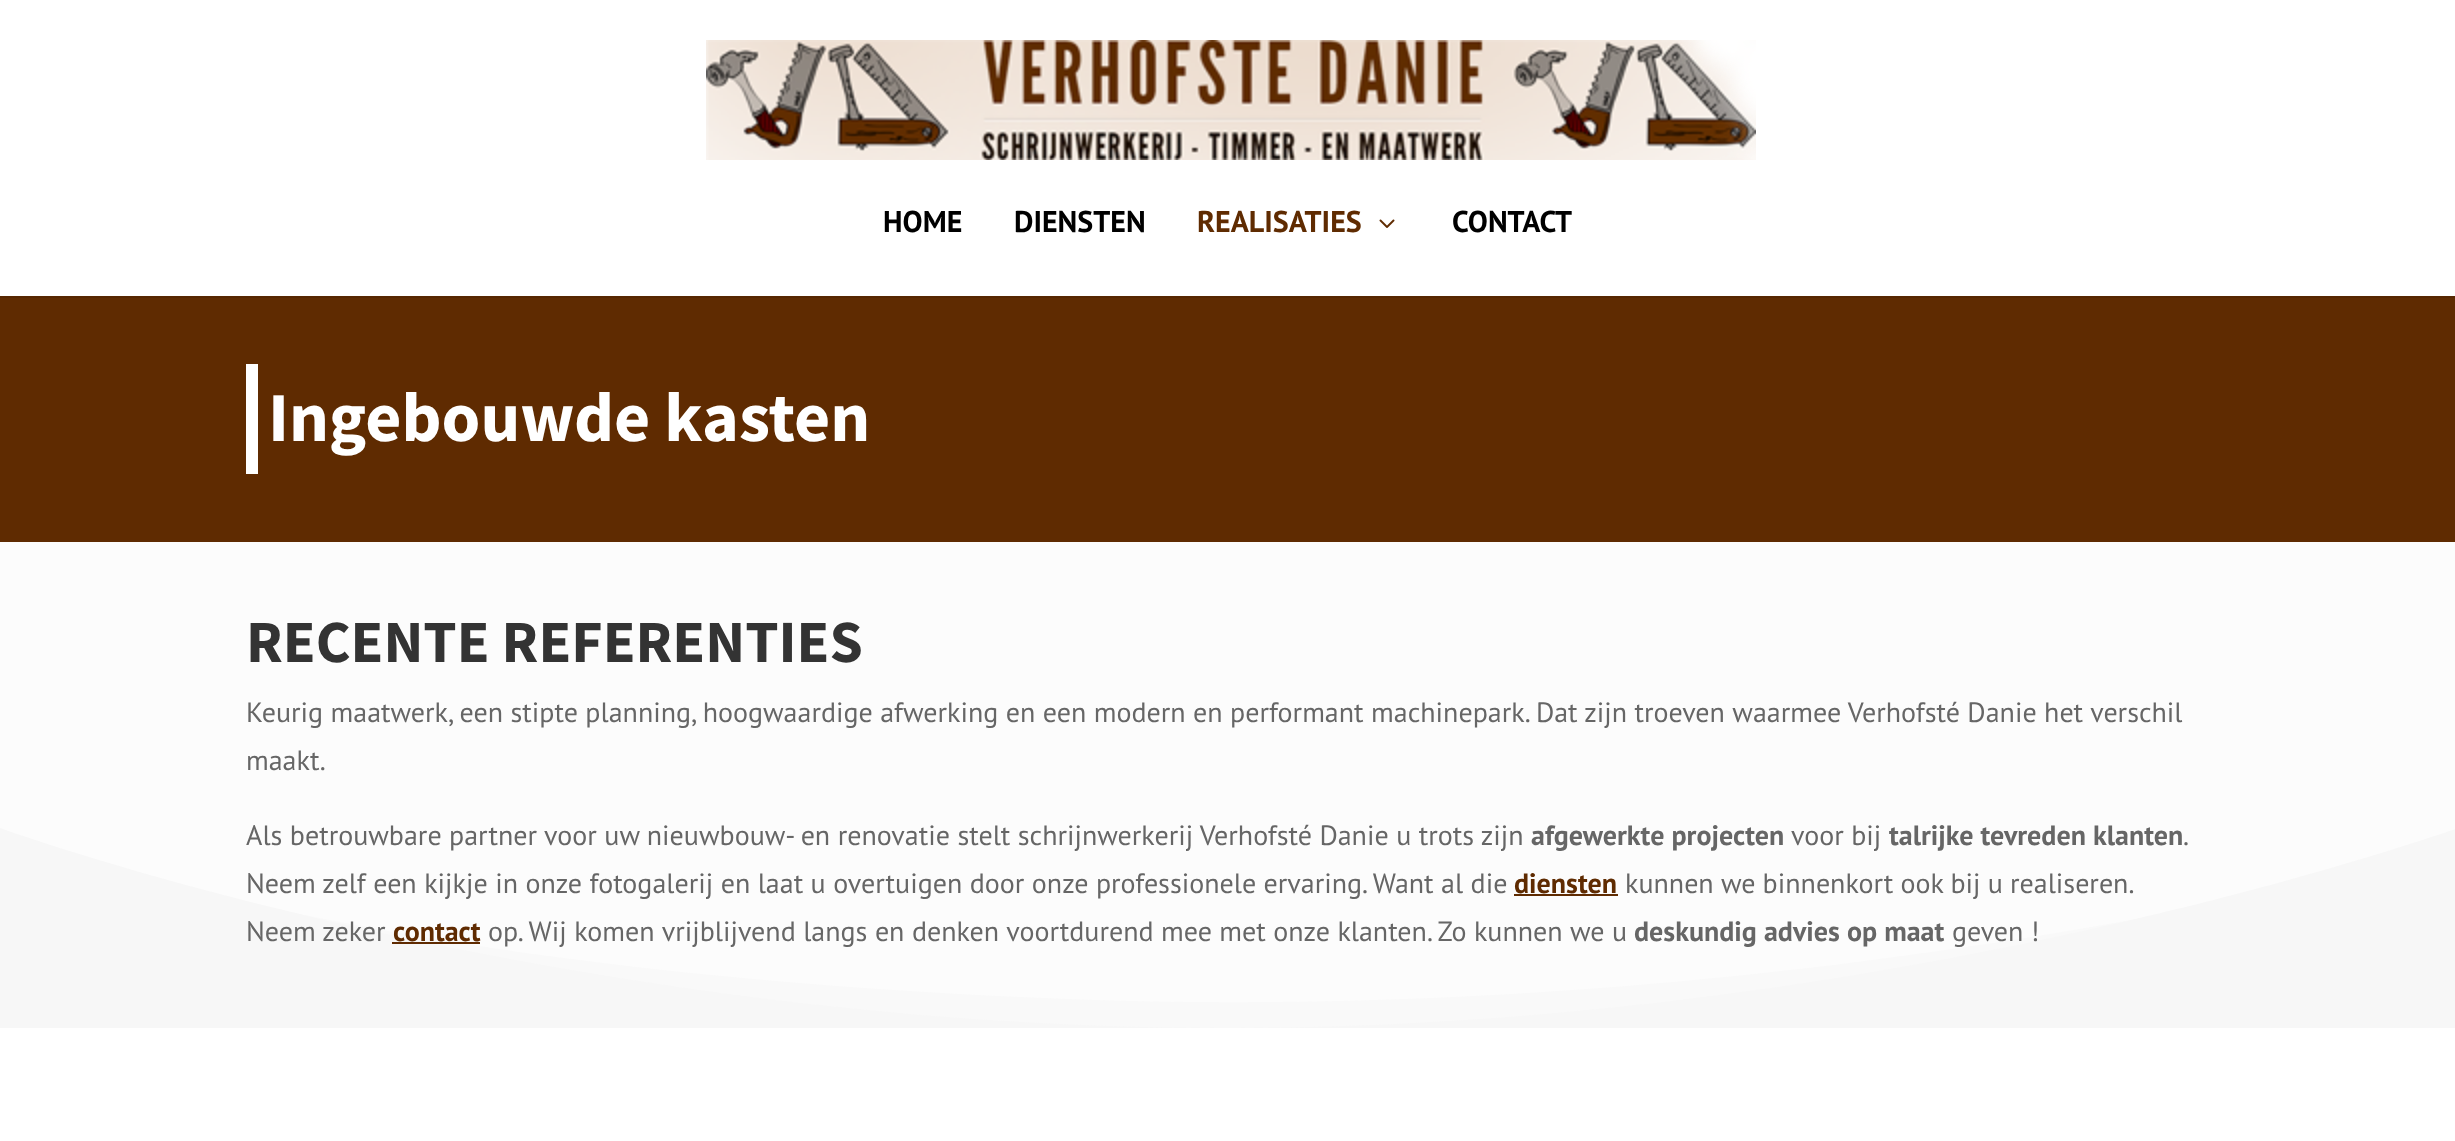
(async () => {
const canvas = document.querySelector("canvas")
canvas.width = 2455
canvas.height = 1141
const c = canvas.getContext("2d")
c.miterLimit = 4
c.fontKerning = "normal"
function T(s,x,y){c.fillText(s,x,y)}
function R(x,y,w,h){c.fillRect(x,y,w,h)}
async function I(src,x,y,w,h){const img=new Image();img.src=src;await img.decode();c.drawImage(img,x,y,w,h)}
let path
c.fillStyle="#fff"
R(0,0,2455,1141)
c.fillStyle="#562701"
R(0,296,2455,2)
await I("1.png",706,40,1050,120)
c.font="bold 30px PT Sans"
c.fillStyle="#000"
T("HOME",883,232)
T("DIENSTEN",1014,232)
c.fillStyle="#5f2b01"
T("REALISATIES",1197,232)
await I("2.png",1379,219,16,9)
c.fillStyle="#000"
T("CONTACT",1452,232)
c.fillStyle="#5f2b01"
R(0,298,2455,244)
c.fillStyle="#fff"
R(246,364,12,110)
c.font="bold 70px Source Sans Pro"
T("Ingebouwde kasten",268,441)
c.fillStyle="#fcfcfc"
R(0,542,2455,461)
c.font="bold 60px Source Sans Pro"
c.fillStyle="#333"
T("RECENTE REFERENTIES",246,662)
c.font="28px PT Sans"
c.fillStyle="#666"
T("Keurig maatwerk, een stipte planning, hoogwaardige afwerking en een modern en performant machinepark. Dat zijn troeven waarmee Verhofsté Danie het verschil",246,722)
T("maakt.",246,770)
c.fillStyle="#f9f9f9"
path = new Path2D("M1068 999c761 29 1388-151 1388-151v180h-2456v-200c0 0 306 142 1068 171z")
c.fill(path)
c.save()
c.beginPath()
c.rect(0,828,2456,200)
c.clip()
c.fillStyle="#f7f7f7"
path = new Path2D("M1228 1028c678 0 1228-200 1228-199v200h-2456v-201c0 0 550 200 1228 200z")
c.fill(path)
c.restore()
c.fillStyle="#666"
T("Als betrouwbare partner voor uw nieuwbouw- en renovatie stelt schrijnwerkerij Verhofsté Danie u trots zijn",246,845)
c.font="bold 28px PT Sans"
T("afgewerkte projecten",1531,845)
c.font="28px PT Sans"
T("voor bij",1791,845)
c.font="bold 28px PT Sans"
T("talrijke tevreden klanten",1889,845)
c.font="28px PT Sans"
T(".",2183,845)
T("Neem zelf een kijkje in onze fotogalerij en laat u overtuigen door onze professionele ervaring. Want al die",246,893)
c.font="bold 28px PT Sans"
c.fillStyle="#5f2b01"
T("diensten",1514,893)
R(1514,894,104,2)
c.wordSpacing="-0.25px"
c.font="28px PT Sans"
c.fillStyle="#666"
T("kunnen we binnenkort ook bij u realiseren.",1625,893)
c.wordSpacing="0px"
T("Neem zeker",246,941)
c.font="bold 28px PT Sans"
c.fillStyle="#5f2b01"
T("contact",393,941)
R(392,942,88,2)
c.font="28px PT Sans"
c.fillStyle="#666"
T("op. Wij komen vrijblijvend langs en denken voortdurend mee met onze klanten. Zo kunnen we u",488,941)
c.font="bold 28px PT Sans"
T("deskundig advies op maat",1634,941)
c.font="28px PT Sans"
T("geven !",1952,941)
})()
